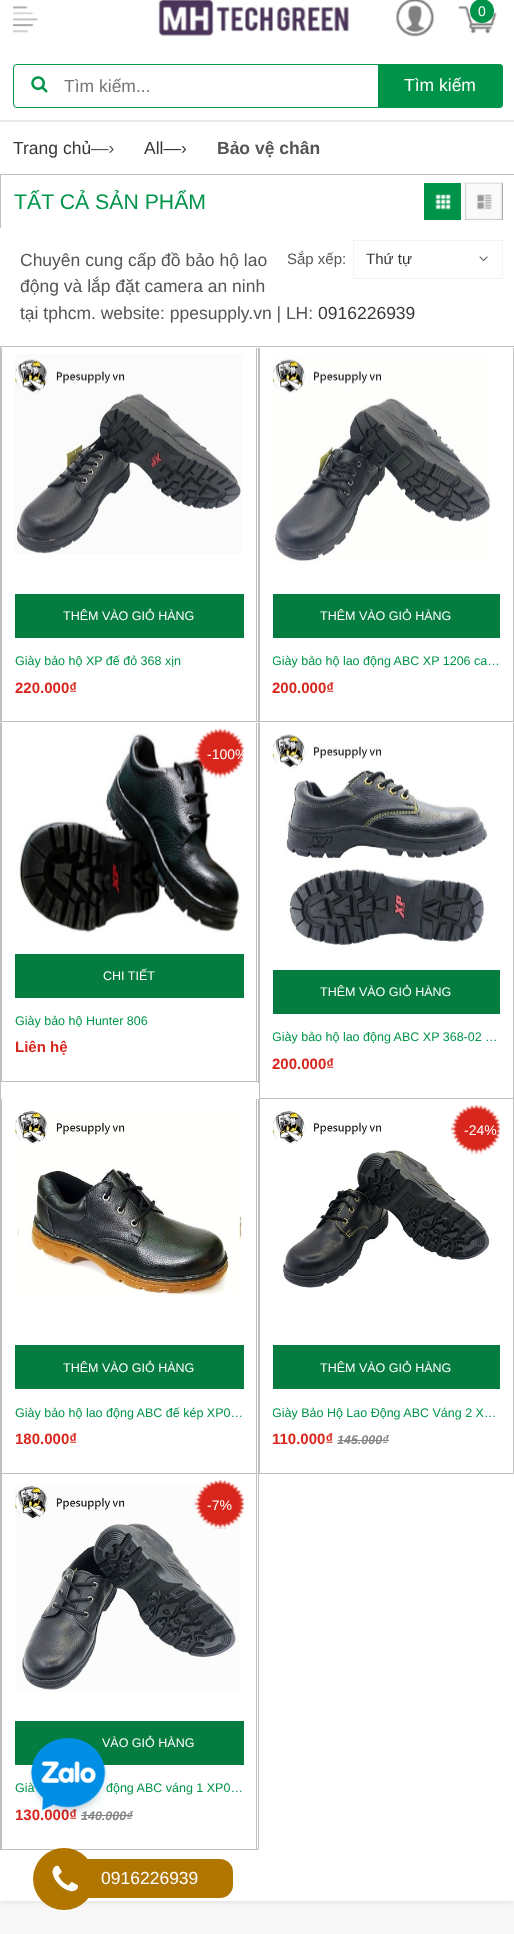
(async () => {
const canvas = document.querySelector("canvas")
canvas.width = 514
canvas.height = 1934
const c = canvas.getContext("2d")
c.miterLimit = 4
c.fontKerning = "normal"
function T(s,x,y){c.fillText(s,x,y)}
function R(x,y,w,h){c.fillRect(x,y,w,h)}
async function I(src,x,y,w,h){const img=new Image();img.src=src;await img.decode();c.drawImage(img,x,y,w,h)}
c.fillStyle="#f8f8f8"
R(0,0,514,1934)
c.fillStyle="#d5d5d5"
c.filter="blur(3px)"
c.beginPath()
c.rect(0,-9,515,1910)
c.fill()
c.filter="none"
c.fillStyle="#fff"
R(0,0,514,1901)
await I("1.png",158,0,191,37)
await I("2.png",13,6,25,27)
await I("3.png",396,0,39,37)
await I("4.png",458,6,39,28)
c.fillStyle="#00944a"
c.beginPath()
c.arc(482,11,12,0,7)
c.fill()
c.font="14px Liberation Sans"
c.fillStyle="#fff"
T("0",478,16)
c.beginPath()
c.roundRect(13.5,64.5,489,43,3.5)
c.strokeStyle="#00944a"
c.stroke()
await I("5.png",31,76,17,17)
c.font="17.5px Liberation Sans"
c.fillStyle="#757575"
T("Tìm kiếm...",64,92)
c.fillStyle="#00944a"
c.beginPath()
c.roundRect(378,64,125,44,[0,4,4,0])
c.fill()
c.fillStyle="#fff"
T("Tìm kiếm",404,91)
c.fillStyle="#e8e8e8"
R(0,120,514,2)
c.fillStyle="#373737"
T("Trang chủ",13,154)
c.fillStyle="#555"
T("—›",91,154)
c.fillStyle="#373737"
T("All—›",144,154)
c.font="bold 17.5px Liberation Sans"
c.fillStyle="#555"
T("Bảo vệ chân",217,154)
c.fillStyle="#c1c1c1"
R(0,174,514,1)
R(0,174,1,54)
c.font="21.25px Liberation Sans"
c.fillStyle="#00944a"
T("TẤT CẢ SẢN PHẨM",14,209)
R(424,183,37,37)
await I("6.png",435,194,16,16)
c.fillStyle="#666"
R(465,183,38,37)
await I("7.png",464,182,39,39)
c.font="15px Liberation Sans"
c.fillStyle="#555"
T("Sắp xếp:",287,264)
c.strokeStyle="#f3f3f3"
c.strokeRect(353.5,240.5,149,38)
c.fillStyle="#373737"
T("Thứ tự",366,264)
await I("8.png",479,256,9,6)
c.font="17.5px Liberation Sans"
c.fillStyle="#555"
T("Chuyên cung cấp đồ bảo hộ lao",20,266)
T("động và lắp đặt camera an ninh",20,292)
T("tại tphcm. website: ppesupply.vn | LH:",20,319)
c.fillStyle="#373737"
T("0916226939",318,319)
c.fillStyle="#c1c1c1"
R(0,346,514,1)
R(0,346,1,1504)
R(258,348,1,735)
R(1,721,513,1)
R(256,348,1,373)
R(1,348,1,373)
await I("9.png",15,354,228,200)
c.fillStyle="#057d41"
R(15,594,229,44)
c.font="12.5px Liberation Sans"
c.fillStyle="#fff"
T("THÊM VÀO GIỎ HÀNG",63,620)
c.fillStyle="#00944a"
T("Giày bảo hộ XP đế đỏ 368 xịn",15,665)
c.font="bold 15px Liberation Sans"
c.fillStyle="#d8261c"
T("220.000₫",15,693)
c.fillStyle="#c1c1c1"
R(513,348,1,373)
R(259,348,1,373)
await I("10.png",272,355,219,208)
c.fillStyle="#057d41"
R(273,594,227,44)
c.font="12.5px Liberation Sans"
c.fillStyle="#fff"
T("THÊM VÀO GIỎ HÀNG",320,620)
c.save()
c.beginPath()
c.rect(273,653,227,16)
c.clip()
c.fillStyle="#00944a"
T("Giày bảo hộ lao động ABC XP 1206 ca…",272,665)
c.restore()
c.font="bold 15px Liberation Sans"
c.fillStyle="#d8261c"
T("200.000₫",272,693)
c.fillStyle="#c1c1c1"
R(1,1081,258,1)
R(256,723,1,358)
R(1,723,1,358)
await I("11.png",19,733,222,200)
await I("12.png",194,728,50,50)
c.save()
c.beginPath()
c.rect(15,729,229,212)
c.clip()
c.font="14px Liberation Sans"
c.fillStyle="#fff"
T("-100%",207,759)
c.restore()
c.fillStyle="#057d41"
R(15,954,229,44)
c.font="12.5px Liberation Sans"
c.fillStyle="#fff"
T("CHI TIẾT",103,980)
c.fillStyle="#00944a"
T("Giày bảo hộ Hunter 806",15,1025)
c.font="bold 15px Liberation Sans"
c.fillStyle="#d8261c"
T("Liên hệ",15,1052)
c.fillStyle="#c1c1c1"
R(259,1098,255,1)
R(513,723,1,375)
R(259,723,1,375)
await I("13.png",272,734,216,211)
c.fillStyle="#057d41"
R(273,970,227,44)
c.font="12.5px Liberation Sans"
c.fillStyle="#fff"
T("THÊM VÀO GIỎ HÀNG",320,996)
c.save()
c.beginPath()
c.rect(273,1029,227,16)
c.clip()
c.fillStyle="#00944a"
T("Giày bảo hộ lao động ABC XP 368-02 …",272,1041)
c.restore()
c.font="bold 15px Liberation Sans"
c.fillStyle="#d8261c"
T("200.000₫",272,1069)
c.fillStyle="#c1c1c1"
R(258,1099,1,751)
R(1,1473,513,1)
R(256,1099,1,374)
R(1,1099,1,374)
await I("14.png",15,1109,228,187)
c.fillStyle="#057d41"
R(15,1345,229,44)
c.font="12.5px Liberation Sans"
c.fillStyle="#fff"
T("THÊM VÀO GIỎ HÀNG",63,1372)
c.fillStyle="#00944a"
T("Giày bảo hộ lao động ABC đế kép XP0…",15,1417)
c.font="bold 15px Liberation Sans"
c.fillStyle="#d8261c"
T("180.000₫",15,1444)
c.fillStyle="#c1c1c1"
R(513,1099,1,374)
R(259,1099,1,374)
await I("15.png",272,1110,218,178)
await I("16.png",451,1105,49,49)
c.font="14px Liberation Sans"
c.fillStyle="#fff"
T("-24%",464,1135)
c.fillStyle="#057d41"
R(273,1345,227,44)
c.font="12.5px Liberation Sans"
c.fillStyle="#fff"
T("THÊM VÀO GIỎ HÀNG",320,1372)
c.save()
c.beginPath()
c.rect(273,1404,227,16)
c.clip()
c.fillStyle="#00944a"
T("Giày Bảo Hộ Lao Động ABC Váng 2 X…",272,1417)
c.restore()
c.font="bold 15px Liberation Sans"
c.fillStyle="#d8261c"
T("110.000₫",272,1444)
c.font="italic bold 12.5px Liberation Sans"
c.fillStyle="#858585"
T("145.000₫",337,1444)
R(338,1440,51,1)
c.fillStyle="#c1c1c1"
R(1,1849,258,1)
R(256,1474,1,375)
R(1,1474,1,375)
await I("17.png",15,1484,224,207)
await I("18.png",194,1480,50,49)
c.font="14px Liberation Sans"
c.fillStyle="#fff"
T("-7%",207,1510)
c.fillStyle="#057d41"
R(15,1721,229,44)
c.font="12.5px Liberation Sans"
c.fillStyle="#fff"
T("VÀO GIỎ HÀNG",102,1747)
c.fillStyle="#00944a"
T("Già",15,1792)
T("động ABC váng 1 XP0…",106,1792)
c.font="bold 15px Liberation Sans"
c.fillStyle="#d8261c"
T("130.000₫",15,1820)
c.font="italic bold 12.5px Liberation Sans"
c.fillStyle="#858585"
T("140.000₫",81,1820)
R(81,1815,52,1)
await I("19.png",29,1737,79,80)
c.fillStyle="#b07600"
c.beginPath()
c.arc(64,1879,31,0,7)
c.fill()
await I("20.png",52,1865,26,27)
c.beginPath()
c.roundRect(83,1859,150,39,[0,13,13,0])
c.fill()
c.font="17.5px Liberation Sans"
c.fillStyle="#fff"
T("0916226939",101,1884)
})()
